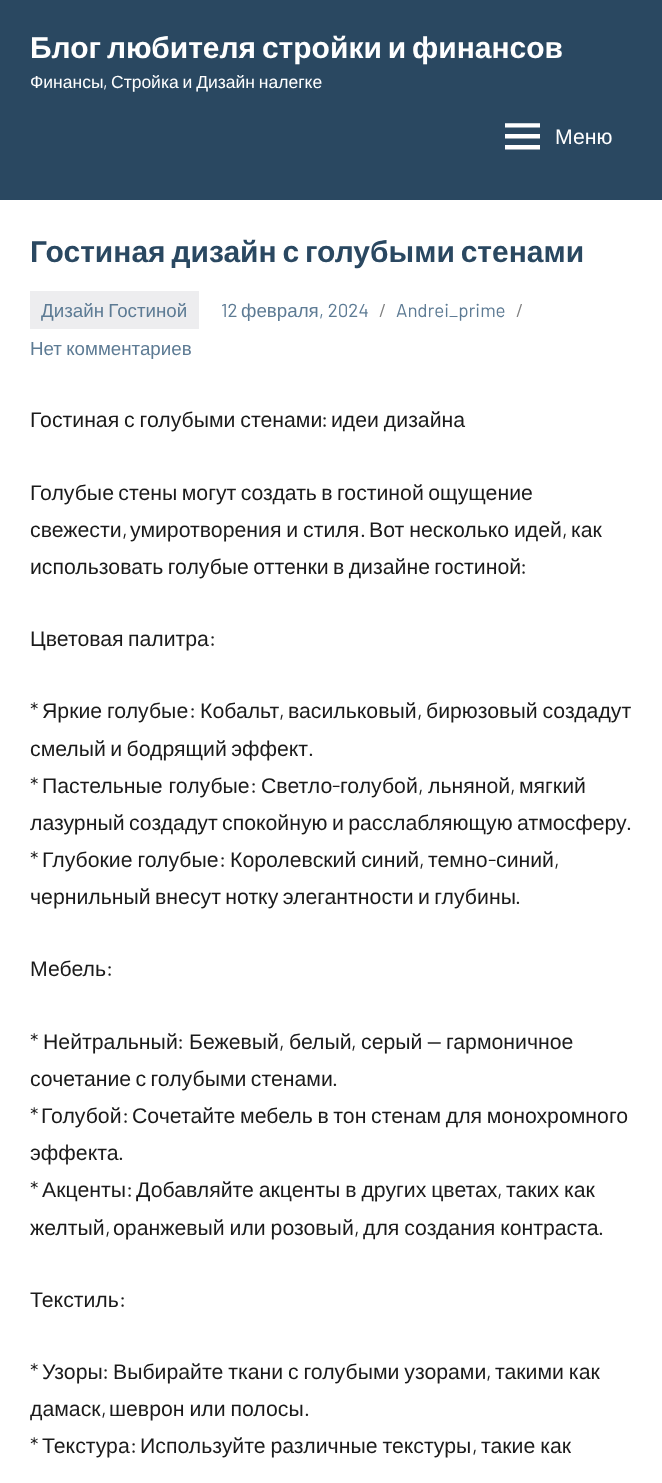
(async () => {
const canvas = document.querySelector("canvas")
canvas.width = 662
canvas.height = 1483
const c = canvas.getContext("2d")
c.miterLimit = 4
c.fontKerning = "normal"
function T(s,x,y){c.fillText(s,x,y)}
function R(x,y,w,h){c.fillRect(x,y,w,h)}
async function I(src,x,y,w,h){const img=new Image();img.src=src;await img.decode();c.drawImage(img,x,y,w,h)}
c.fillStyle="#2a4861"
R(0,0,662,1483)
c.wordSpacing="-2.5px"
c.font="bold 30px Liberation Sans"
c.fillStyle="#fff"
T("Блог любителя стройки и финансов",30,58)
c.wordSpacing="0px"
c.font="17.5px Liberation Sans"
T("Финансы",30,88)
c.font="17.5px Barlow"
T(",",103,88)
c.wordSpacing="-1px"
c.font="17.5px Liberation Sans"
T("Стройка и Дизайн налегке",111,88)
await I("1.png",505,123,35,27)
c.wordSpacing="0px"
c.font="21.25px Liberation Sans"
T("Меню",555,144)
R(0,200,662,1283)
c.wordSpacing="-2.5px"
c.font="bold 30px Liberation Sans"
c.fillStyle="#2a4861"
T("Гостиная дизайн с голубыми стенами",30,262)
c.fillStyle="#ededef"
R(30,291,169,38)
c.wordSpacing="-1px"
c.font="18.75px Liberation Sans"
c.fillStyle="#5d7b94"
T("Дизайн Гостиной",41,317)
c.wordSpacing="0px"
c.font="18.75px Barlow"
T("12",221,317)
c.font="18.75px Liberation Sans"
T("февраля",241,317)
c.font="18.75px Barlow"
T(", 2024",319,317)
c.fillStyle="#808080"
T("/",379,317)
c.fillStyle="#5d7b94"
T("Andrei_prime",396,317)
c.fillStyle="#808080"
T("/",516,317)
c.wordSpacing="-1px"
c.font="18.75px Liberation Sans"
c.fillStyle="#5d7b94"
T("Нет комментариев",30,355)
c.font="21.25px Liberation Sans"
c.fillStyle="#1a1a1a"
T("Гостиная с голубыми стенами",30,427)
c.wordSpacing="0px"
c.font="21.25px Barlow"
T(":",321,427)
c.wordSpacing="-1px"
c.font="21.25px Liberation Sans"
T("идеи дизайна",331,427)
c.wordSpacing="-1.5px"
T("Голубые стены могут создать в гостиной ощущение",30,500)
c.wordSpacing="0px"
T("свежести",30,537)
c.font="21.25px Barlow"
T(",",122,537)
c.wordSpacing="-1px"
c.font="21.25px Liberation Sans"
T("умиротворения и стиля",130,537)
c.wordSpacing="0px"
c.font="21.25px Barlow"
T(".",360,537)
c.wordSpacing="-1px"
c.font="21.25px Liberation Sans"
T("Вот несколько идей",369,537)
c.wordSpacing="0px"
c.font="21.25px Barlow"
T(",",562,537)
c.font="21.25px Liberation Sans"
T("как",571,537)
c.wordSpacing="-1.5px"
T("использовать голубые оттенки в дизайне гостиной",30,574)
c.wordSpacing="0px"
c.font="21.25px Barlow"
T(":",520,574)
c.wordSpacing="-1.5px"
c.font="21.25px Liberation Sans"
T("Цветовая палитра",30,646)
c.wordSpacing="0px"
c.font="21.25px Barlow"
T(":",209,646)
T("*",30,718)
c.wordSpacing="-1px"
c.font="21.25px Liberation Sans"
T("Яркие голубые",42,718)
c.wordSpacing="0px"
c.font="21.25px Barlow"
T(":",189,718)
c.font="21.25px Liberation Sans"
T("Кобальт",200,718)
c.font="21.25px Barlow"
T(",",279,718)
c.font="21.25px Liberation Sans"
T("васильковый",288,718)
c.font="21.25px Barlow"
T(",",417,718)
c.wordSpacing="-1px"
c.font="21.25px Liberation Sans"
T("бирюзовый создадут",426,718)
c.wordSpacing="-1.5px"
T("смелый и бодрящий эффект",30,756)
c.wordSpacing="0px"
c.font="21.25px Barlow"
T(".",308,756)
T("*",30,793)
c.font="21.25px Liberation Sans"
T("Пастельные голубые",42,793)
c.font="21.25px Barlow"
T(":",250,793)
c.font="21.25px Liberation Sans"
T("Светло",261,793)
c.font="21.25px Barlow"
T("-",332,793)
c.font="21.25px Liberation Sans"
T("голубой",340,793)
T("льняной",428,793)
T("мягкий",519,793)
c.font="21.25px Barlow"
T(",",418,793)
T(",",510,793)
c.wordSpacing="-1.5px"
c.font="21.25px Liberation Sans"
T("лазурный создадут спокойную и расслабляющую атмосферу",30,830)
c.wordSpacing="0px"
c.font="21.25px Barlow"
T(".",626,830)
T("*",30,867)
c.wordSpacing="-1px"
c.font="21.25px Liberation Sans"
T("Глубокие голубые",42,867)
c.wordSpacing="0px"
c.font="21.25px Barlow"
T(":",219,867)
c.wordSpacing="-1px"
c.font="21.25px Liberation Sans"
T("Королевский синий",230,867)
c.wordSpacing="0px"
T("темно",428,867)
c.font="21.25px Barlow"
T("-",488,867)
c.font="21.25px Liberation Sans"
T("синий",496,867)
c.font="21.25px Barlow"
T(",",419,867)
T(",",554,867)
c.wordSpacing="-1.5px"
c.font="21.25px Liberation Sans"
T("чернильный внесут нотку элегантности и глубины",30,904)
c.wordSpacing="0px"
c.font="21.25px Barlow"
T(".",515,904)
c.font="21.25px Liberation Sans"
T("Мебель",30,976)
c.font="21.25px Barlow"
T(":",106,976)
T("*",30,1049)
c.font="21.25px Liberation Sans"
T("Нейтральный",43,1049)
c.font="21.25px Barlow"
T(":",177,1049)
c.font="21.25px Liberation Sans"
T("Бежевый",189,1049)
T("белый",289,1049)
T("серый",361,1049)
c.font="21.25px Barlow"
T("—",427,1049)
c.font="21.25px Liberation Sans"
T("гармоничное",446,1049)
c.font="21.25px Barlow"
T(",",279,1049)
T(",",351,1049)
c.wordSpacing="-1.5px"
c.font="21.25px Liberation Sans"
T("сочетание с голубыми стенами",30,1086)
c.wordSpacing="0px"
c.font="21.25px Barlow"
T(".",332,1086)
T("*",30,1123)
c.font="21.25px Liberation Sans"
T("Голубой",41,1123)
c.font="21.25px Barlow"
T(":",122,1123)
c.wordSpacing="-1.25px"
c.font="21.25px Liberation Sans"
T("Сочетайте мебель в тон стенам для монохромного",132,1123)
c.wordSpacing="0px"
T("эффекта",30,1160)
c.font="21.25px Barlow"
T(".",118,1160)
T("*",30,1197)
c.font="21.25px Liberation Sans"
T("Акценты",42,1197)
c.font="21.25px Barlow"
T(":",126,1197)
c.wordSpacing="-1px"
c.font="21.25px Liberation Sans"
T("Добавляйте акценты в других цветах",136,1197)
c.wordSpacing="0px"
c.font="21.25px Barlow"
T(",",497,1197)
c.wordSpacing="-1px"
c.font="21.25px Liberation Sans"
T("таких как",506,1197)
c.wordSpacing="0px"
T("желтый",30,1235)
c.font="21.25px Barlow"
T(",",105,1235)
c.wordSpacing="-1px"
c.font="21.25px Liberation Sans"
T("оранжевый или розовый",113,1235)
c.wordSpacing="0px"
c.font="21.25px Barlow"
T(",",354,1235)
c.wordSpacing="-1px"
c.font="21.25px Liberation Sans"
T("для создания контраста",363,1235)
c.wordSpacing="0px"
c.font="21.25px Barlow"
T(".",598,1235)
c.font="21.25px Liberation Sans"
T("Текстиль",30,1307)
c.font="21.25px Barlow"
T(":",119,1307)
T("*",30,1379)
c.font="21.25px Liberation Sans"
T("Узоры",42,1379)
c.font="21.25px Barlow"
T(":",102,1379)
c.wordSpacing="-1px"
c.font="21.25px Liberation Sans"
T("Выбирайте ткани с голубыми узорами",113,1379)
c.wordSpacing="0px"
c.font="21.25px Barlow"
T(",",486,1379)
c.wordSpacing="-1px"
c.font="21.25px Liberation Sans"
T("такими как",495,1379)
c.wordSpacing="0px"
T("дамаск",30,1416)
c.font="21.25px Barlow"
T(",",101,1416)
c.wordSpacing="-1px"
c.font="21.25px Liberation Sans"
T("шеврон или полосы",109,1416)
c.wordSpacing="0px"
c.font="21.25px Barlow"
T(".",304,1416)
T("*",30,1453)
c.font="21.25px Liberation Sans"
T("Текстура",42,1453)
c.font="21.25px Barlow"
T(":",130,1453)
c.wordSpacing="-1px"
c.font="21.25px Liberation Sans"
T("Используйте различные текстуры",140,1453)
c.wordSpacing="0px"
c.font="21.25px Barlow"
T(",",472,1453)
c.wordSpacing="-1px"
c.font="21.25px Liberation Sans"
T("такие как",481,1453)
})()
